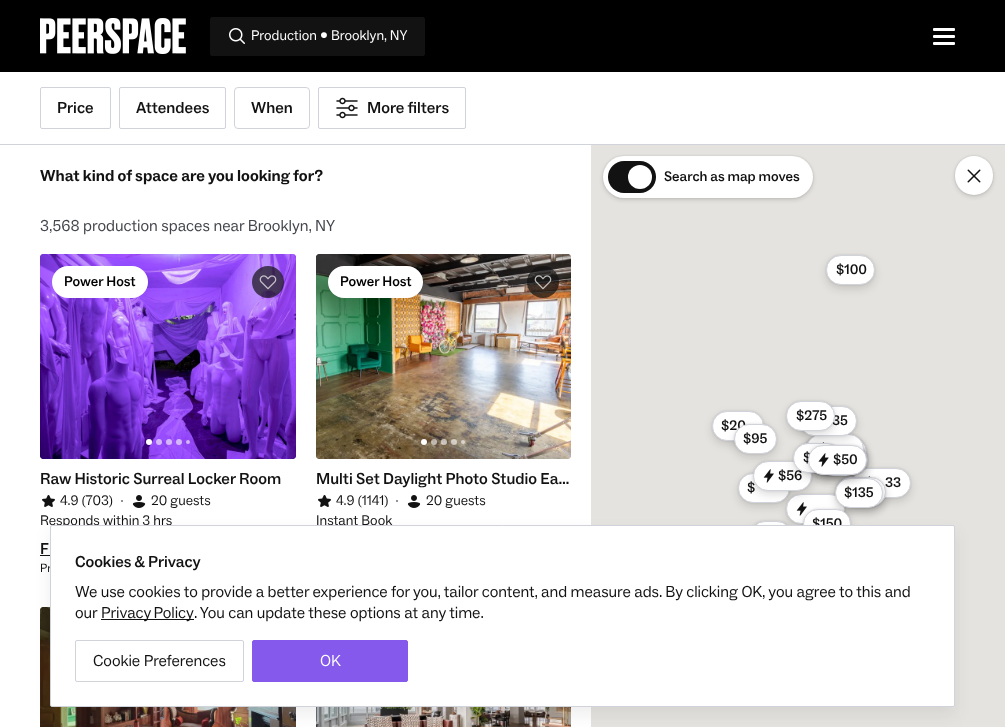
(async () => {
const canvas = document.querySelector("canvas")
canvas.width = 1005
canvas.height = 727
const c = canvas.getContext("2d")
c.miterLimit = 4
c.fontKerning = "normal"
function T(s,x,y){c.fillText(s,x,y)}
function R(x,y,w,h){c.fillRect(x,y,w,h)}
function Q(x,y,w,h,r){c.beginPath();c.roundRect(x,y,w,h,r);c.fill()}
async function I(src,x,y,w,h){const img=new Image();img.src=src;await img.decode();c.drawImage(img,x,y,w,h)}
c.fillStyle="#fff"
R(0,0,1005,727)
c.fillStyle="#000"
R(0,0,1005,72)
await I("1.png",40,18,146,36)
c.fillStyle="#121212"
c.beginPath()
c.roundRect(210.5,17.5,214,38,1.5)
c.fill()
c.strokeStyle="#121212"
c.stroke()
await I("2.png",229,28,16,16)
c.font="14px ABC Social"
c.fillStyle="#fff"
T("Production • Brooklyn, NY",251,40)
Q(933,28,22,3,1)
Q(933,35,22,3,1)
Q(933,42,22,3,1)
c.fillStyle="#d1d3db"
R(0,144,1005,1)
c.beginPath()
c.roundRect(40.5,87.5,70,41,1.5)
c.strokeStyle="#d1d3db"
c.stroke()
c.font="500 16px ABC Social"
c.fillStyle="#121212"
T("Price",57,113)
c.beginPath()
c.roundRect(119.5,87.5,106,41,1.5)
c.stroke()
T("Attendees",136,113)
c.beginPath()
c.roundRect(234.5,87.5,75,41,3.5)
c.stroke()
T("When",251,113)
c.beginPath()
c.roundRect(318.5,87.5,147,41,1.5)
c.stroke()
await I("3.png",336,97,22,22)
T("More filters",367,113)
c.font="bold 16px ABC Social"
T("What kind of space are you looking for?",40,181)
c.font="16px ABC Social"
c.fillStyle="#42454b"
T("3,568 production spaces near Brooklyn, NY",40,231)
await I("4.png",40,254,256,205)
await I("5.png",40,254,256,205)
c.fillStyle="#fff"
Q(52,266,96,32,16)
c.font="500 14px ABC Social"
c.fillStyle="#000"
T("Power Host",64,286)
c.fillStyle="#fff"
c.beginPath()
c.arc(149,442,3,0,7)
c.fill()
c.fillStyle="#ffffff99"
c.beginPath()
c.arc(159,442,3,0,7)
c.fill()
c.beginPath()
c.arc(169,442,3,0,7)
c.fill()
c.beginPath()
c.arc(179,442,3,0,7)
c.fill()
c.beginPath()
c.arc(188,442,2,0,7)
c.fill()
c.fillStyle="#121212b3"
c.beginPath()
c.arc(268,282,16,0,7)
c.fill()
await I("6.png",259,275,18,15)
c.font="500 16px ABC Social"
c.fillStyle="#121212"
T("Raw Historic Surreal Locker Room",40,484)
await I("7.png",42,495,13,12)
c.font="14px ABC Social"
T("4.9 (703)",60,505)
c.fillStyle="#6a6e7a"
c.beginPath()
c.arc(122,501,1,0,7)
c.fill()
await I("8.png",132,495,14,13)
c.fillStyle="#121212"
T("20 guests",151,505)
T("Responds within 3 hrs",40,525)
c.font="500 16px ABC Social"
T("F",40,554)
R(40,555,10,1)
c.font="12px ABC Social"
T("Pr",40,572)
await I("9.png",316,254,255,205)
await I("10.png",316,254,255,205)
c.fillStyle="#fff"
Q(328,266,95,32,16)
c.font="500 14px ABC Social"
c.fillStyle="#000"
T("Power Host",340,286)
c.fillStyle="#fff"
c.beginPath()
c.arc(424,442,3,0,7)
c.fill()
c.fillStyle="#ffffff99"
c.beginPath()
c.arc(434,442,3,0,7)
c.fill()
c.beginPath()
c.arc(444,442,3,0,7)
c.fill()
c.beginPath()
c.arc(454,442,3,0,7)
c.fill()
c.beginPath()
c.arc(463,442,2,0,7)
c.fill()
c.fillStyle="#121212b3"
c.beginPath()
c.arc(543,282,16,0,7)
c.fill()
await I("11.png",534,275,18,15)
c.font="500 16px ABC Social"
c.fillStyle="#121212"
T("Multi Set Daylight Photo Studio Ea…",316,484)
await I("7.png",318,495,13,12)
c.font="14px ABC Social"
T("4.9 (1141)",336,505)
c.fillStyle="#6a6e7a"
c.beginPath()
c.arc(397,501,1,0,7)
c.fill()
await I("8.png",407,495,14,13)
c.fillStyle="#121212"
T("20 guests",426,505)
T("Instant Book",316,525)
await I("12.png",40,607,256,120)
await I("13.png",40,607,10,4)
await I("14.png",316,707,255,20)
c.fillStyle="#e5e3df"
R(591,145,414,582)
c.fillStyle="#12121224"
c.filter="blur(2px)"
c.beginPath()
c.roundRect(603,158,210,42,21)
c.fill()
c.filter="none"
c.fillStyle="#1212121f"
c.filter="blur(1px)"
c.beginPath()
c.roundRect(603,156,210,42,21)
c.fill()
c.filter="none"
c.fillStyle="#fff"
Q(603,156,210,42,21)
c.fillStyle="#121212"
Q(608,161,48,32,16)
c.fillStyle="#fff"
c.beginPath()
c.arc(640,177,12,0,7)
c.fill()
c.font="500 14px ABC Social"
c.fillStyle="#121212"
T("Search as map moves",664,181)
c.fillStyle="#1212121f"
c.filter="blur(1px)"
c.beginPath()
c.roundRect(826,255,49,30,15)
c.fill()
c.filter="none"
c.fillStyle="#12121224"
c.filter="blur(4px)"
c.beginPath()
c.roundRect(826,259,49,30,15)
c.fill()
c.filter="none"
c.fillStyle="#fff"
c.beginPath()
c.roundRect(826.5,255.5,48,29,14.5)
c.fill()
c.stroke()
c.fillStyle="#121212"
T("$100",836,274)
c.fillStyle="#1212121f"
c.filter="blur(1px)"
c.beginPath()
c.roundRect(712,411,52,30,15)
c.fill()
c.filter="none"
c.fillStyle="#12121224"
c.filter="blur(4px)"
c.beginPath()
c.roundRect(712,415,52,30,15)
c.fill()
c.filter="none"
c.fillStyle="#fff"
c.beginPath()
c.roundRect(712.5,411.5,51,29,14.5)
c.fill()
c.stroke()
c.fillStyle="#121212"
T("$20",721,430)
c.fillStyle="#1212121f"
c.filter="blur(1px)"
c.beginPath()
c.roundRect(808,437,59,30,15)
c.fill()
c.filter="none"
c.filter="blur(1px)"
c.beginPath()
c.roundRect(836,476,48,30,15)
c.fill()
c.filter="none"
c.fillStyle="#12121224"
c.filter="blur(4px)"
c.beginPath()
c.roundRect(836,480,48,30,15)
c.fill()
c.filter="none"
c.fillStyle="#fff"
c.beginPath()
c.roundRect(836.5,476.5,47,29,14.5)
c.fill()
c.stroke()
c.fillStyle="#12121224"
c.filter="blur(4px)"
c.beginPath()
c.roundRect(808,441,59,30,15)
c.fill()
c.filter="none"
c.fillStyle="#fff"
c.beginPath()
c.roundRect(808.5,437.5,58,29,14.5)
c.fill()
c.stroke()
c.fillStyle="#12121224"
c.filter="blur(4px)"
c.beginPath()
c.roundRect(814,444,41,30,15)
c.fill()
c.filter="none"
c.fillStyle="#1212121f"
c.filter="blur(1px)"
c.beginPath()
c.roundRect(738,473,52,30,15)
c.fill()
c.filter="none"
c.fillStyle="#12121224"
c.filter="blur(4px)"
c.beginPath()
c.roundRect(738,477,52,30,15)
c.fill()
c.filter="none"
c.fillStyle="#fff"
c.beginPath()
c.roundRect(738.5,473.5,51,29,14.5)
c.fill()
c.stroke()
c.fillStyle="#12121224"
c.filter="blur(4px)"
c.beginPath()
c.roundRect(786,498,59,30,15)
c.fill()
c.filter="none"
c.fillStyle="#1212121f"
c.filter="blur(1px)"
c.beginPath()
c.roundRect(852,468,59,30,15)
c.fill()
c.filter="none"
c.filter="blur(1px)"
c.beginPath()
c.roundRect(786,494,59,30,15)
c.fill()
c.filter="none"
c.fillStyle="#fff"
c.beginPath()
c.roundRect(786.5,494.5,58,29,14.5)
c.fill()
c.stroke()
c.fillStyle="#12121224"
c.filter="blur(4px)"
c.beginPath()
c.roundRect(852,472,59,30,15)
c.fill()
c.filter="none"
c.fillStyle="#fff"
c.beginPath()
c.roundRect(852.5,468.5,58,29,14.5)
c.fill()
c.stroke()
await I("18.png",868,476,2,1)
c.fillStyle="#1212121f"
c.filter="blur(1px)"
c.beginPath()
c.roundRect(808,445,59,30,15)
c.fill()
c.filter="none"
c.fillStyle="#12121224"
c.filter="blur(4px)"
c.beginPath()
c.roundRect(808,449,59,30,15)
c.fill()
c.filter="none"
c.beginPath()
c.roundRect(808.5,445.5,58,29,14.5)
c.stroke()
c.fillStyle="#1212121f"
c.filter="blur(1px)"
c.beginPath()
c.roundRect(804,436,58,30,15)
c.fill()
c.filter="none"
c.filter="blur(1px)"
c.beginPath()
c.roundRect(838,477,48,30,15)
c.fill()
c.filter="none"
c.fillStyle="#12121224"
c.filter="blur(4px)"
c.beginPath()
c.roundRect(838,481,48,30,15)
c.fill()
c.filter="none"
c.fillStyle="#121212"
T("33",885,487)
c.fillStyle="#fff"
c.beginPath()
c.roundRect(838.5,477.5,47,29,14.5)
c.fill()
c.stroke()
c.fillStyle="#12121224"
c.filter="blur(4px)"
c.beginPath()
c.roundRect(804,440,58,30,15)
c.fill()
c.filter="none"
c.beginPath()
c.roundRect(804.5,436.5,57,29,14.5)
c.stroke()
c.fillStyle="#1212121f"
c.filter="blur(1px)"
c.beginPath()
c.roundRect(753,461,59,30,15)
c.fill()
c.filter="none"
await I("17.png",796,502,11,14)
c.fillStyle="#12121224"
c.filter="blur(4px)"
c.beginPath()
c.roundRect(753,465,59,30,15)
c.fill()
c.filter="none"
c.fillStyle="#121212"
T("$",747,492)
c.fillStyle="#fff"
c.beginPath()
c.roundRect(753.5,461.5,58,29,14.5)
c.fill()
c.stroke()
c.fillStyle="#1212121f"
c.filter="blur(1px)"
c.beginPath()
c.roundRect(835,478,48,30,15)
c.fill()
c.filter="none"
c.fillStyle="#12121224"
c.filter="blur(4px)"
c.beginPath()
c.roundRect(835,482,48,30,15)
c.fill()
c.filter="none"
c.fillStyle="#fff"
c.beginPath()
c.roundRect(835.5,478.5,47,29,14.5)
c.fill()
c.stroke()
c.fillStyle="#1212121f"
c.filter="blur(1px)"
c.beginPath()
c.roundRect(809,445,59,30,15)
c.fill()
c.filter="none"
c.fillStyle="#12121224"
c.filter="blur(4px)"
c.beginPath()
c.roundRect(809,449,59,30,15)
c.fill()
c.filter="none"
c.beginPath()
c.roundRect(809.5,445.5,58,29,14.5)
c.stroke()
c.fillStyle="#1212121f"
c.filter="blur(1px)"
c.beginPath()
c.roundRect(806,434,58,30,15)
c.fill()
c.filter="none"
c.fillStyle="#12121224"
c.filter="blur(4px)"
c.beginPath()
c.roundRect(806,438,58,30,15)
c.fill()
c.filter="none"
c.fillStyle="#fff"
c.beginPath()
c.roundRect(806.5,434.5,57,29,14.5)
c.fill()
c.stroke()
c.fillStyle="#1212121f"
c.filter="blur(1px)"
c.beginPath()
c.roundRect(799,406,58,30,15)
c.fill()
c.filter="none"
await I("15.png",822,442,2,1)
c.filter="blur(1px)"
c.beginPath()
c.roundRect(818,446,43,30,15)
c.fill()
c.filter="none"
c.fillStyle="#12121224"
c.filter="blur(4px)"
c.beginPath()
c.roundRect(818,450,43,30,15)
c.fill()
c.filter="none"
c.beginPath()
c.roundRect(818.5,446.5,42,29,14.5)
c.stroke()
c.fillStyle="#1212121f"
c.filter="blur(1px)"
c.beginPath()
c.roundRect(793,443,49,30,15)
c.fill()
c.filter="none"
c.fillStyle="#12121224"
c.filter="blur(4px)"
c.beginPath()
c.roundRect(793,447,49,30,15)
c.fill()
c.filter="none"
c.fillStyle="#121212"
T("$56",778,480)
c.fillStyle="#fff"
c.beginPath()
c.roundRect(793.5,443.5,48,29,14.5)
c.fill()
c.stroke()
c.fillStyle="#12121224"
c.filter="blur(4px)"
c.beginPath()
c.roundRect(799,410,58,30,15)
c.fill()
c.filter="none"
c.fillStyle="#fff"
c.beginPath()
c.roundRect(799.5,406.5,57,29,14.5)
c.fill()
c.stroke()
c.fillStyle="#1212121f"
c.filter="blur(1px)"
c.beginPath()
c.roundRect(786,401,49,30,15)
c.fill()
c.filter="none"
c.filter="blur(1px)"
c.beginPath()
c.roundRect(734,424,43,30,15)
c.fill()
c.filter="none"
await I("17.png",763,469,11,14)
c.fillStyle="#12121224"
c.filter="blur(4px)"
c.beginPath()
c.roundRect(734,428,43,30,15)
c.fill()
c.filter="none"
c.fillStyle="#fff"
c.beginPath()
c.roundRect(734.5,424.5,42,29,14.5)
c.fill()
c.stroke()
c.fillStyle="#121212"
T("$",803,462)
c.fillStyle="#1212121f"
c.filter="blur(1px)"
c.beginPath()
c.roundRect(808,445,59,30,15)
c.fill()
c.filter="none"
c.fillStyle="#12121224"
c.filter="blur(4px)"
c.beginPath()
c.roundRect(808,449,59,30,15)
c.fill()
c.filter="none"
c.fillStyle="#fff"
c.beginPath()
c.roundRect(808.5,445.5,58,29,14.5)
c.fill()
c.stroke()
c.fillStyle="#12121224"
c.filter="blur(4px)"
c.beginPath()
c.roundRect(786,405,49,30,15)
c.fill()
c.filter="none"
c.fillStyle="#121212"
T("35",832,425)
c.fillStyle="#fff"
c.beginPath()
c.roundRect(786.5,401.5,48,29,14.5)
c.fill()
c.stroke()
c.fillStyle="#121212"
T("$275",796,420)
T("$95",743,443)
await I("16.png",818,453,11,14)
T("$50",833,464)
T("$135",844,497)
c.fillStyle="#1212121f"
c.filter="blur(1px)"
c.beginPath()
c.roundRect(750,521,42,30,15)
c.fill()
c.filter="none"
c.fillStyle="#12121224"
c.filter="blur(4px)"
c.beginPath()
c.roundRect(750,525,42,30,15)
c.fill()
c.filter="none"
c.fillStyle="#fff"
c.beginPath()
c.roundRect(750.5,521.5,41,29,14.5)
c.fill()
c.stroke()
c.fillStyle="#1212121f"
c.filter="blur(1px)"
c.beginPath()
c.roundRect(803,509,48,30,15)
c.fill()
c.filter="none"
c.fillStyle="#12121224"
c.filter="blur(4px)"
c.beginPath()
c.roundRect(803,513,48,30,15)
c.fill()
c.filter="none"
c.fillStyle="#fff"
c.beginPath()
c.roundRect(803.5,509.5,47,29,14.5)
c.fill()
c.stroke()
c.fillStyle="#121212"
T("$150",812,528)
c.fillStyle="#12121224"
c.filter="blur(2px)"
c.beginPath()
c.roundRect(955,158,38,39,19)
c.fill()
c.filter="none"
c.fillStyle="#1212121f"
c.filter="blur(1px)"
c.beginPath()
c.roundRect(955,156,38,39,19)
c.fill()
c.filter="none"
c.fillStyle="#fff"
Q(955,156,38,39,19)
await I("19.png",967,169,14,14)
c.fillStyle="#21242914"
c.filter="blur(8px)"
c.beginPath()
c.roundRect(50,533,905,182,2)
c.fill()
c.filter="none"
c.fillStyle="#fff"
c.beginPath()
c.roundRect(50.5,525.5,904,181,1.5)
c.fill()
c.stroke()
c.letterSpacing="-0.05px"
c.font="500 16px ABC Social"
c.fillStyle="#121212"
T("Cookies & Privacy",75,567)
c.font="16px ABC Social"
T("We use cookies to provide a better experience for you, tailor content, and measure ads. By clicking OK, you agree to this and",75,597)
T("our",75,618)
R(101,619,93,1)
c.wordSpacing="-1px"
T("Privacy Policy",101,618)
c.wordSpacing="0px"
T(". You can update these options at any time.",194,618)
c.beginPath()
c.roundRect(75.5,640.5,168,41,1.5)
c.stroke()
T("Cookie Preferences",93,666)
c.fillStyle="#8559ec"
c.beginPath()
c.roundRect(252.5,640.5,155,41,1.5)
c.fill()
c.strokeStyle="#8559ec"
c.stroke()
await I("20.png",320,654,21,13)
})()
